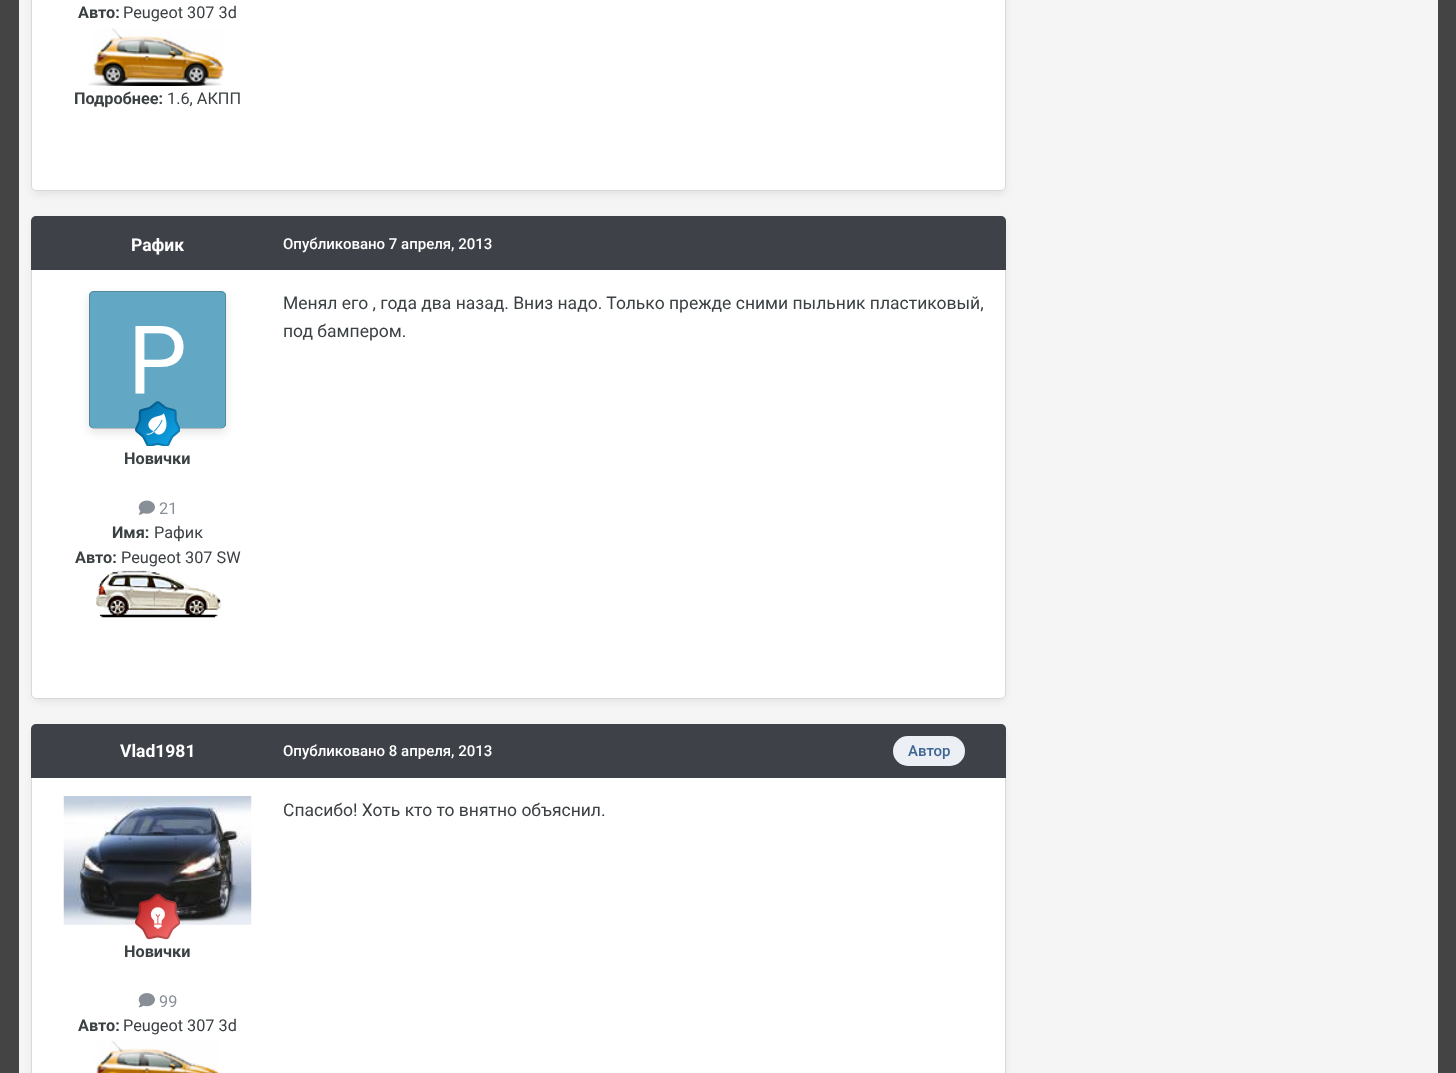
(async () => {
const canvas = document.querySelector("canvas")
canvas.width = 1456
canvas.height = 1073
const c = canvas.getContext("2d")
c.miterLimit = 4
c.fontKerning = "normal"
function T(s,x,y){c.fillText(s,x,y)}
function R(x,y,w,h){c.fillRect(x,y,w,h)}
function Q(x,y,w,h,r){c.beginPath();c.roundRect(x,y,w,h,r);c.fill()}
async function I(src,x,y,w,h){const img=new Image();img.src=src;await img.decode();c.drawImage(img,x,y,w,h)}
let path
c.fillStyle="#444"
R(0,0,1456,1073)
c.fillStyle="#f5f5f5"
R(19,0,1419,1073)
c.fillStyle="#00000014"
c.filter="blur(4px)"
c.beginPath()
c.roundRect(33,-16,972,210,4)
c.fill()
c.filter="none"
c.fillStyle="#fff"
Q(31,-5,975,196,5)
c.beginPath()
c.roundRect(31.5,-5.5,974,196,4.5)
c.strokeStyle="#3b404333"
c.stroke()
c.font="bold 16.25px Roboto"
c.fillStyle="#3b4043"
T("Авто:",78,18)
c.font="16.25px Roboto"
T("Peugeot 307 3d",123,18)
await I("1.png",88,28,136,58)
c.font="bold 16.25px Roboto"
T("Подробнее:",74,104)
c.font="16.25px Roboto"
T("1.6, АКПП",167,104)
c.fillStyle="#00000014"
c.filter="blur(4px)"
c.beginPath()
c.roundRect(33,221,972,480,4)
c.fill()
c.filter="none"
c.fillStyle="#fff"
Q(31,216,975,483,5)
c.beginPath()
c.roundRect(31.5,216.5,974,482,4.5)
c.stroke()
c.fillStyle="#3e4148"
c.beginPath()
c.roundRect(31,216,975,54,[5,5,0,0])
c.fill()
c.font="bold 17.5px Roboto"
c.fillStyle="#fff"
T("Рафик",131,251)
await I("2.png",89,291,137,138)
c.save()
path = new Path2D("M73 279h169v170h-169zm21 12h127c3 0 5 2 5 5v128c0 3-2 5-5 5h-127c-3 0-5-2-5-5v-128c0-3 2-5 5-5z")
c.clip(path,"evenodd")
c.fillStyle="#0000001a"
c.filter="blur(5px)"
c.beginPath()
c.roundRect(89,295,137,138,5)
c.fill()
c.filter="none"
c.restore()
c.beginPath()
c.roundRect(89.5,291.5,136,137,4.5)
c.strokeStyle="#3b40434d"
c.stroke()
await I("3.png",135,401,45,45)
c.font="bold 16.25px Roboto"
c.fillStyle="#3b4043"
T("Новички",124,464)
await I("4.png",138,500,17,15)
c.font="16.25px Roboto"
c.fillStyle="#898f97"
T("21",159,514)
c.font="bold 16.25px Roboto"
c.fillStyle="#3b4043"
T("Имя:",112,538)
c.font="16.25px Roboto"
T("Рафик",154,538)
c.font="bold 16.25px Roboto"
T("Авто:",75,563)
c.font="16.25px Roboto"
T("Peugeot 307 SW",121,563)
await I("5.png",96,570,126,48)
c.font="500 15px Roboto"
c.fillStyle="#fff"
T("Опубликовано 7 апреля, 2013",283,249)
c.font="17.5px Roboto"
c.fillStyle="#3b4043"
T("Менял его , года два назад. Вниз надо. Только прежде сними пыльник пластиковый,",283,309)
T("под бампером.",283,337)
c.fillStyle="#00000014"
c.filter="blur(4px)"
c.beginPath()
c.roundRect(33,729,972,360,4)
c.fill()
c.filter="none"
c.fillStyle="#fff"
Q(31,724,975,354,5)
c.beginPath()
c.roundRect(31.5,724.5,974,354,4.5)
c.strokeStyle="#3b404333"
c.stroke()
c.fillStyle="#3e4148"
c.beginPath()
c.roundRect(31,724,975,54,[5,5,0,0])
c.fill()
c.font="bold 17.5px Roboto"
c.fillStyle="#fff"
T("Vlad1981",120,757)
await I("6.png",63,796,189,129)
await I("7.png",135,894,45,46)
c.font="bold 16.25px Roboto"
c.fillStyle="#3b4043"
T("Новички",124,957)
await I("8.png",138,993,17,15)
c.font="16.25px Roboto"
c.fillStyle="#898f97"
T("99",159,1007)
c.font="bold 16.25px Roboto"
c.fillStyle="#3b4043"
T("Авто:",78,1031)
c.font="16.25px Roboto"
T("Peugeot 307 3d",123,1031)
await I("9.png",95,1040,124,33)
c.font="500 15px Roboto"
c.fillStyle="#fff"
T("Опубликовано 8 апреля, 2013",283,756)
c.fillStyle="#3d6594"
Q(893,736,72,30,15)
c.fillStyle="#ffffffe6"
Q(893,736,72,30,15)
c.fillStyle="#3d6594"
T("Автор",908,756)
c.font="17.5px Roboto"
c.fillStyle="#3b4043"
T("Спасибо! Хоть кто то внятно объяснил.",283,816)
})()
